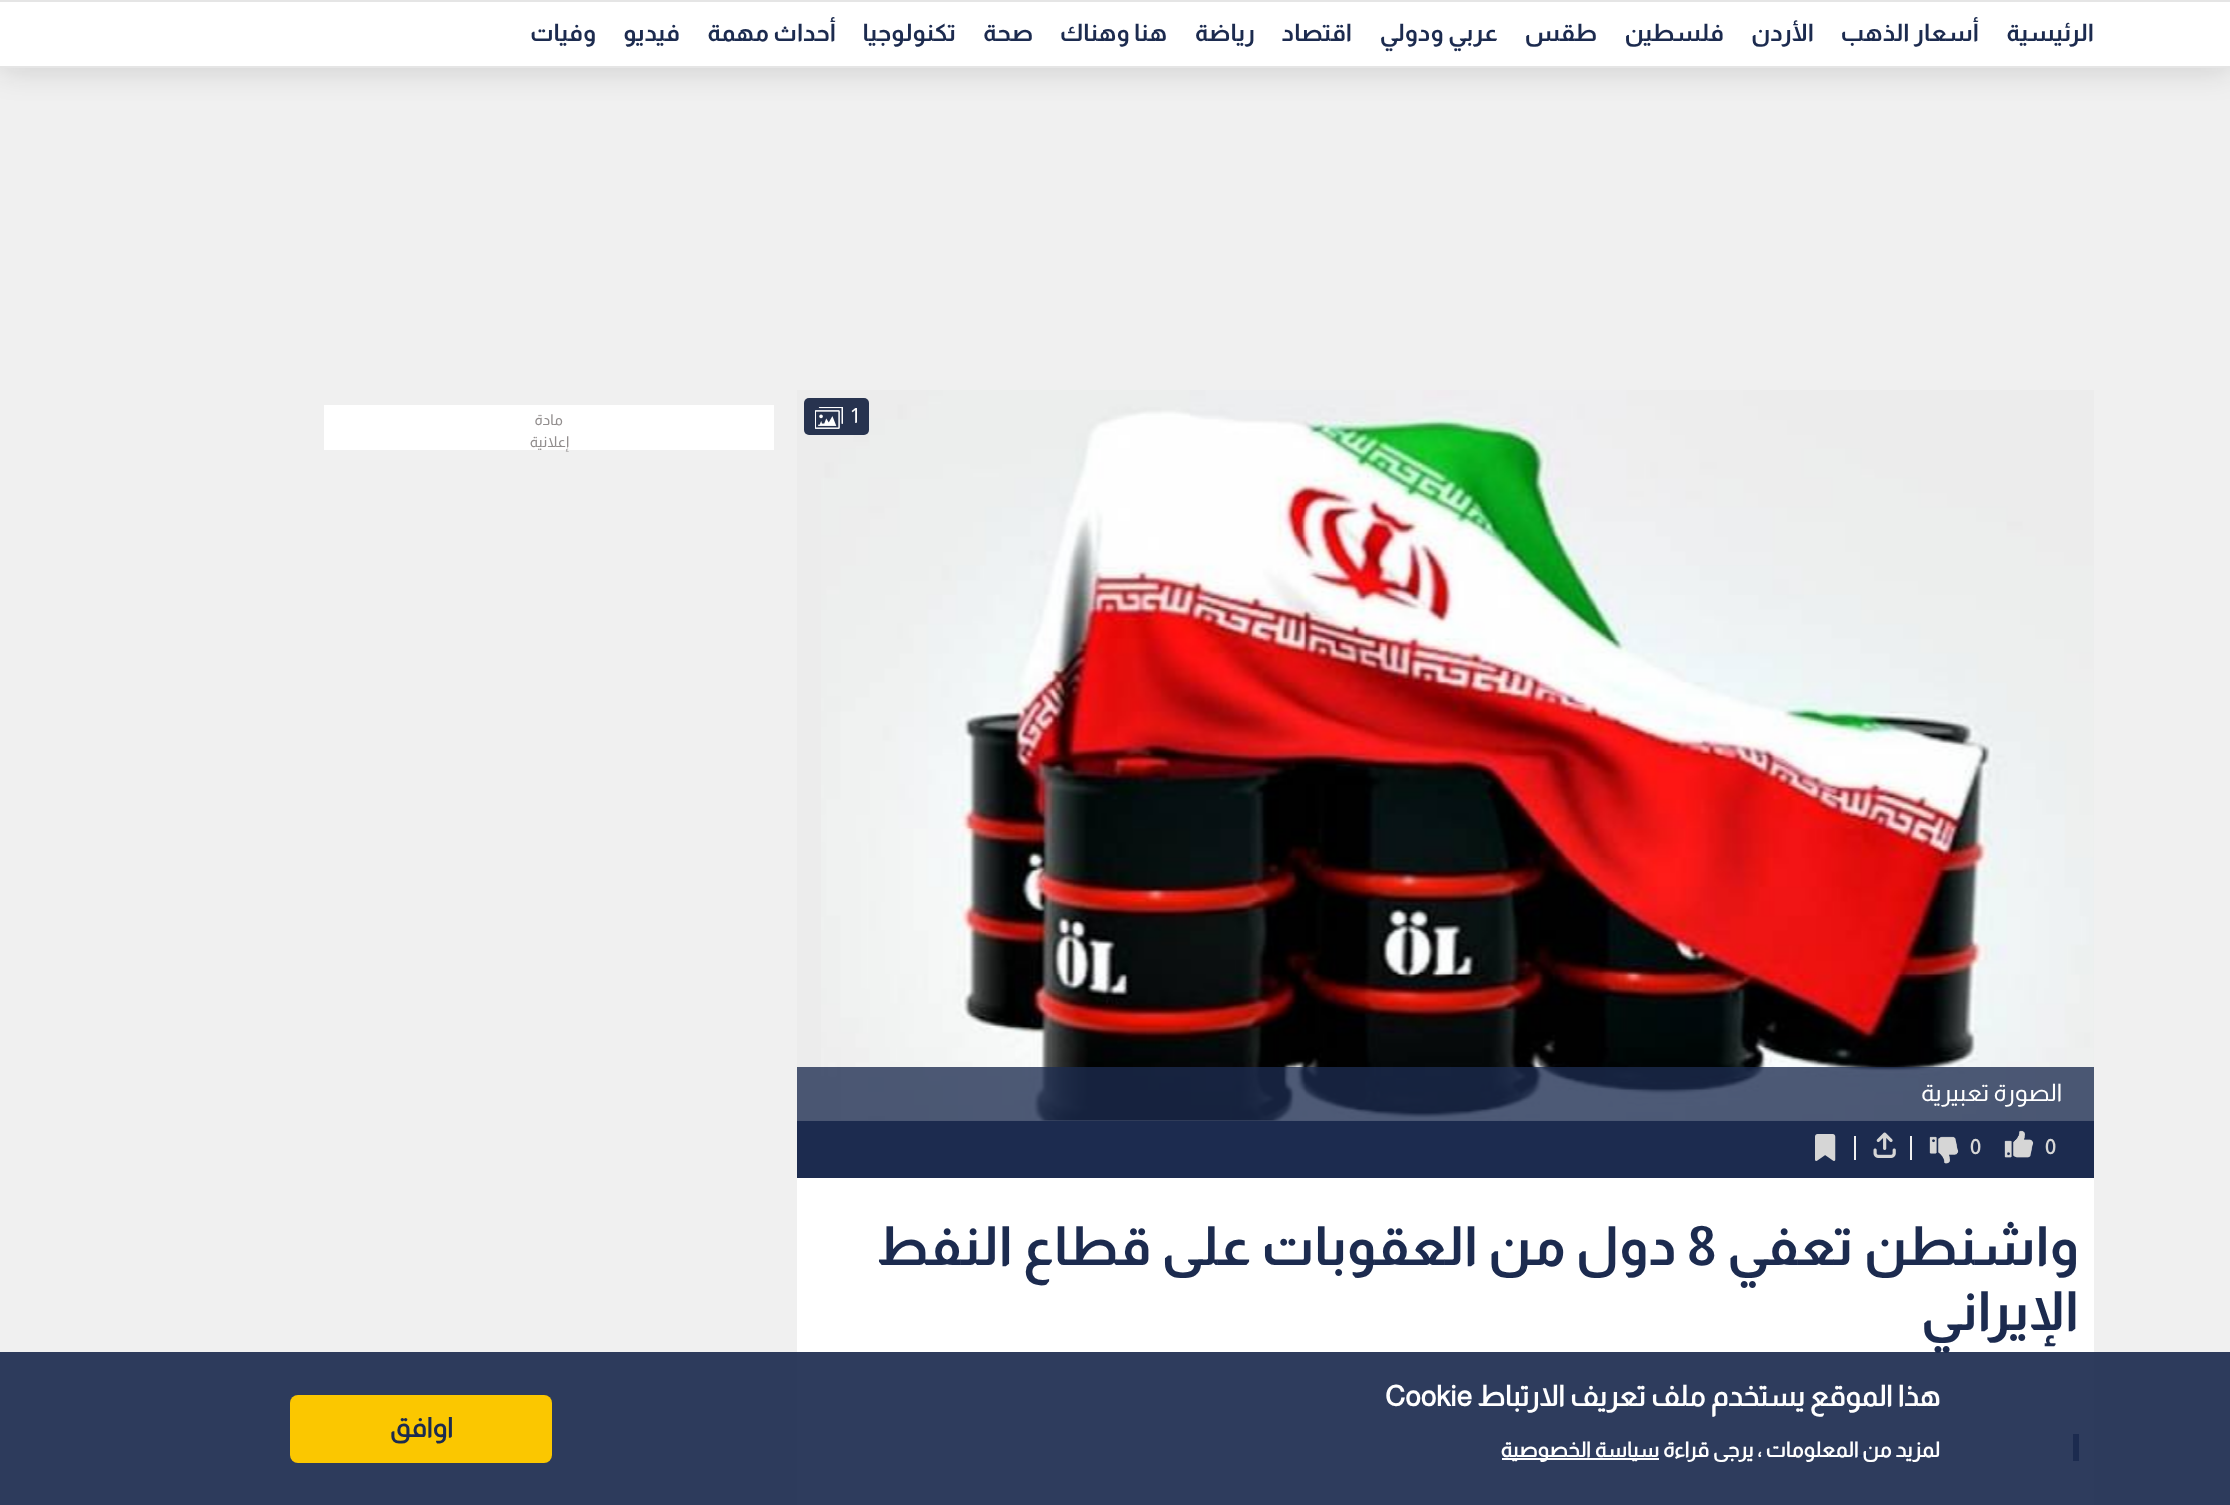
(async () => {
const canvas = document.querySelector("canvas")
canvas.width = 2230
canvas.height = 1505
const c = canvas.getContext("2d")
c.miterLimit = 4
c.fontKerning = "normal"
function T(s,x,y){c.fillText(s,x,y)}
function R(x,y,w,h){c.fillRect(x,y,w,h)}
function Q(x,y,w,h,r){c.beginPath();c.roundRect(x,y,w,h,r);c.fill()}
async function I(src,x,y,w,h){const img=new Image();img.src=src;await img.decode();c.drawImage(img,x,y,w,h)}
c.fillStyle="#f0f0f0"
R(0,0,2230,1505)
c.fillStyle="#14141426"
c.filter="blur(15px)"
c.beginPath()
c.rect(0,3,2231,68)
c.fill()
c.filter="none"
c.fillStyle="#fff"
R(0,2,2230,64)
c.fillStyle="#e5e5e5"
R(0,0,2230,2)
R(0,66,2230,2)
c.direction="rtl"
c.font="bold 24px Almarai"
c.fillStyle="#1c2b4f"
T("الرئيسية",2094,41)
T("أسعار الذهب",1979,41)
T("الأردن",1814,41)
T("فلسطين",1724,41)
T("طقس",1597,41)
T("عربي ودولي",1498,41)
T("اقتصاد",1352,41)
T("رياضة",1255,41)
T("هنا وهناك",1167,41)
T("صحة",1033,41)
T("تكنولوجيا",956,41)
T("أحداث مهمة",836,41)
T("فيديو",680,41)
T("وفيات",596,41)
c.fillStyle="#fff"
R(797,1178,1297,327)
c.font="bold 54px Almarai"
c.fillStyle="#1c2b4f"
T("الإيراني",2079,1330)
R(2073,1434,6,27)
c.fillStyle="#389bff"
R(1818,1455,50,2)
c.fillStyle="#1c2b4feb"
R(0,1352,2230,153)
c.font="bold 28.5px 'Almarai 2'"
c.fillStyle="#fff"
T("هذا الموقع يستخدم ملف تعريف الارتباط",1940,1406)
c.direction="ltr"
T("Cookie",1385,1406)
c.direction="rtl"
c.font="bold 21px 'Almarai 2'"
T("لمزيد من المعلومات ، يرجى قراءة",1940,1457)
R(1502,1458,157,2)
T("سياسة الخصوصية",1659,1457)
c.fillStyle="#fbc700"
Q(290,1395,262,68,8)
c.font="bold 27px 'Almarai 2'"
c.fillStyle="#1c2b4f"
T("اوافق",453,1437)
c.fillStyle="#ececec"
R(797,390,1297,731)
await I("1.png",821,390,1273,731)
c.fillStyle="#27334f"
Q(804,398,65,37,5)
c.direction="ltr"
c.font="21px Almarai"
c.fillStyle="#fff"
T("1",851,423)
await I("2.png",815,407,28,22)
c.fillStyle="#1c2b4fc7"
R(797,1067,1297,54)
c.direction="rtl"
c.font="24px Almarai"
c.fillStyle="#fff"
T("الصورة تعبيرية",2062,1101)
c.fillStyle="#1c2b4f"
R(797,1121,1297,57)
c.direction="ltr"
c.font="bold 20px 'Almarai 2'"
c.fillStyle="#d6d6d6"
T("0",2045,1154)
await I("3.png",2004,1130,30,28)
T("0",1970,1154)
await I("4.png",1929,1136,30,28)
c.fillStyle="#f0f0f0"
R(1910,1136,2,24)
await I("5.png",1873,1132,23,26)
R(1854,1136,2,24)
await I("6.png",1815,1134,21,27)
c.direction="rtl"
c.font="bold 54px Almarai"
c.fillStyle="#1c2b4f"
T("واشنطن تعفي",2079,1265)
c.direction="ltr"
T("8",1687,1265)
c.direction="rtl"
T("دول من العقوبات على قطاع النفط",1677,1265)
c.fillStyle="#fff"
R(324,405,450,45)
c.font="15px Almarai"
c.fillStyle="#918d8d"
T("مادة",563,425)
T("إعلانية",569,447)
})()
